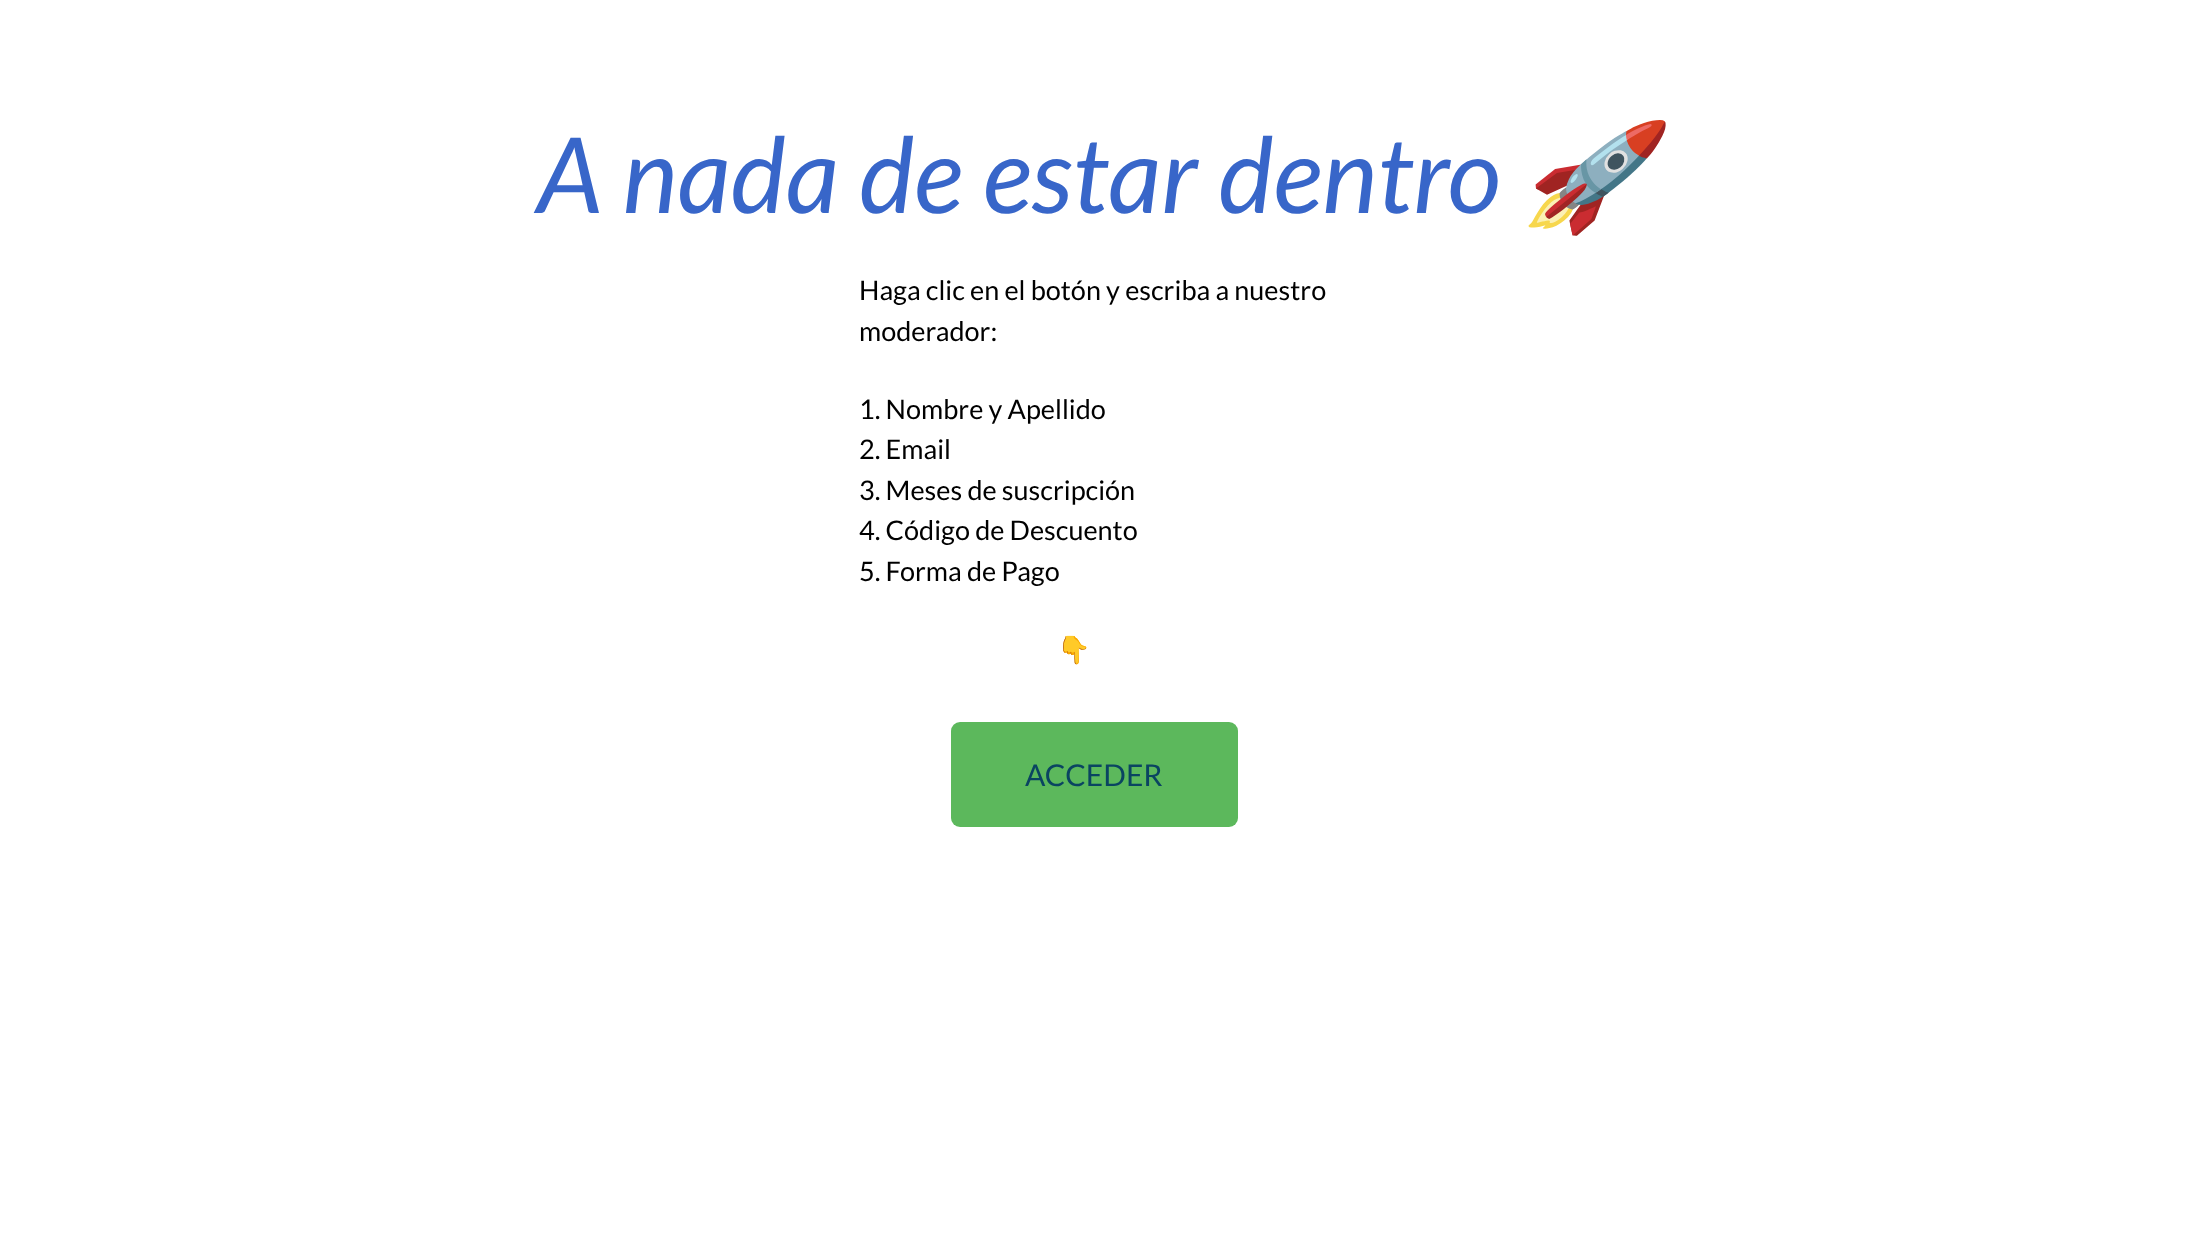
(async () => {
const canvas = document.querySelector("canvas")
canvas.width = 2188
canvas.height = 1234
const c = canvas.getContext("2d")
c.miterLimit = 4
c.fontKerning = "normal"
function T(s,x,y){c.fillText(s,x,y)}
function R(x,y,w,h){c.fillRect(x,y,w,h)}
function Q(x,y,w,h,r){c.beginPath();c.roundRect(x,y,w,h,r);c.fill()}
c.fillStyle="#fff"
R(0,0,2188,1234)
c.font="italic 105px Lato"
c.fillStyle="#3866c9"
T("A nada de estar dentro",537,213)
c.font="italic 105px Noto Color Emoji"
T("🚀",1521,213)
c.font="27px Lato"
c.fillStyle="#000"
T("Haga clic en el botón y escriba a nuestro",859,300)
T("moderador:",859,341)
T("1. Nombre y Apellido",859,419)
T("2. Email",859,459)
T("3. Meses de suscripción",859,500)
T("4. Código de Descuento",859,540)
T("5. Forma de Pago",859,581)
c.font="27px Noto Color Emoji"
T("👇",1057,659)
c.fillStyle="#5cb85c"
Q(951,722,287,105,9)
c.font="30px Lato"
c.fillStyle="#0a4461"
T("ACCEDER",1025,786)
})()
